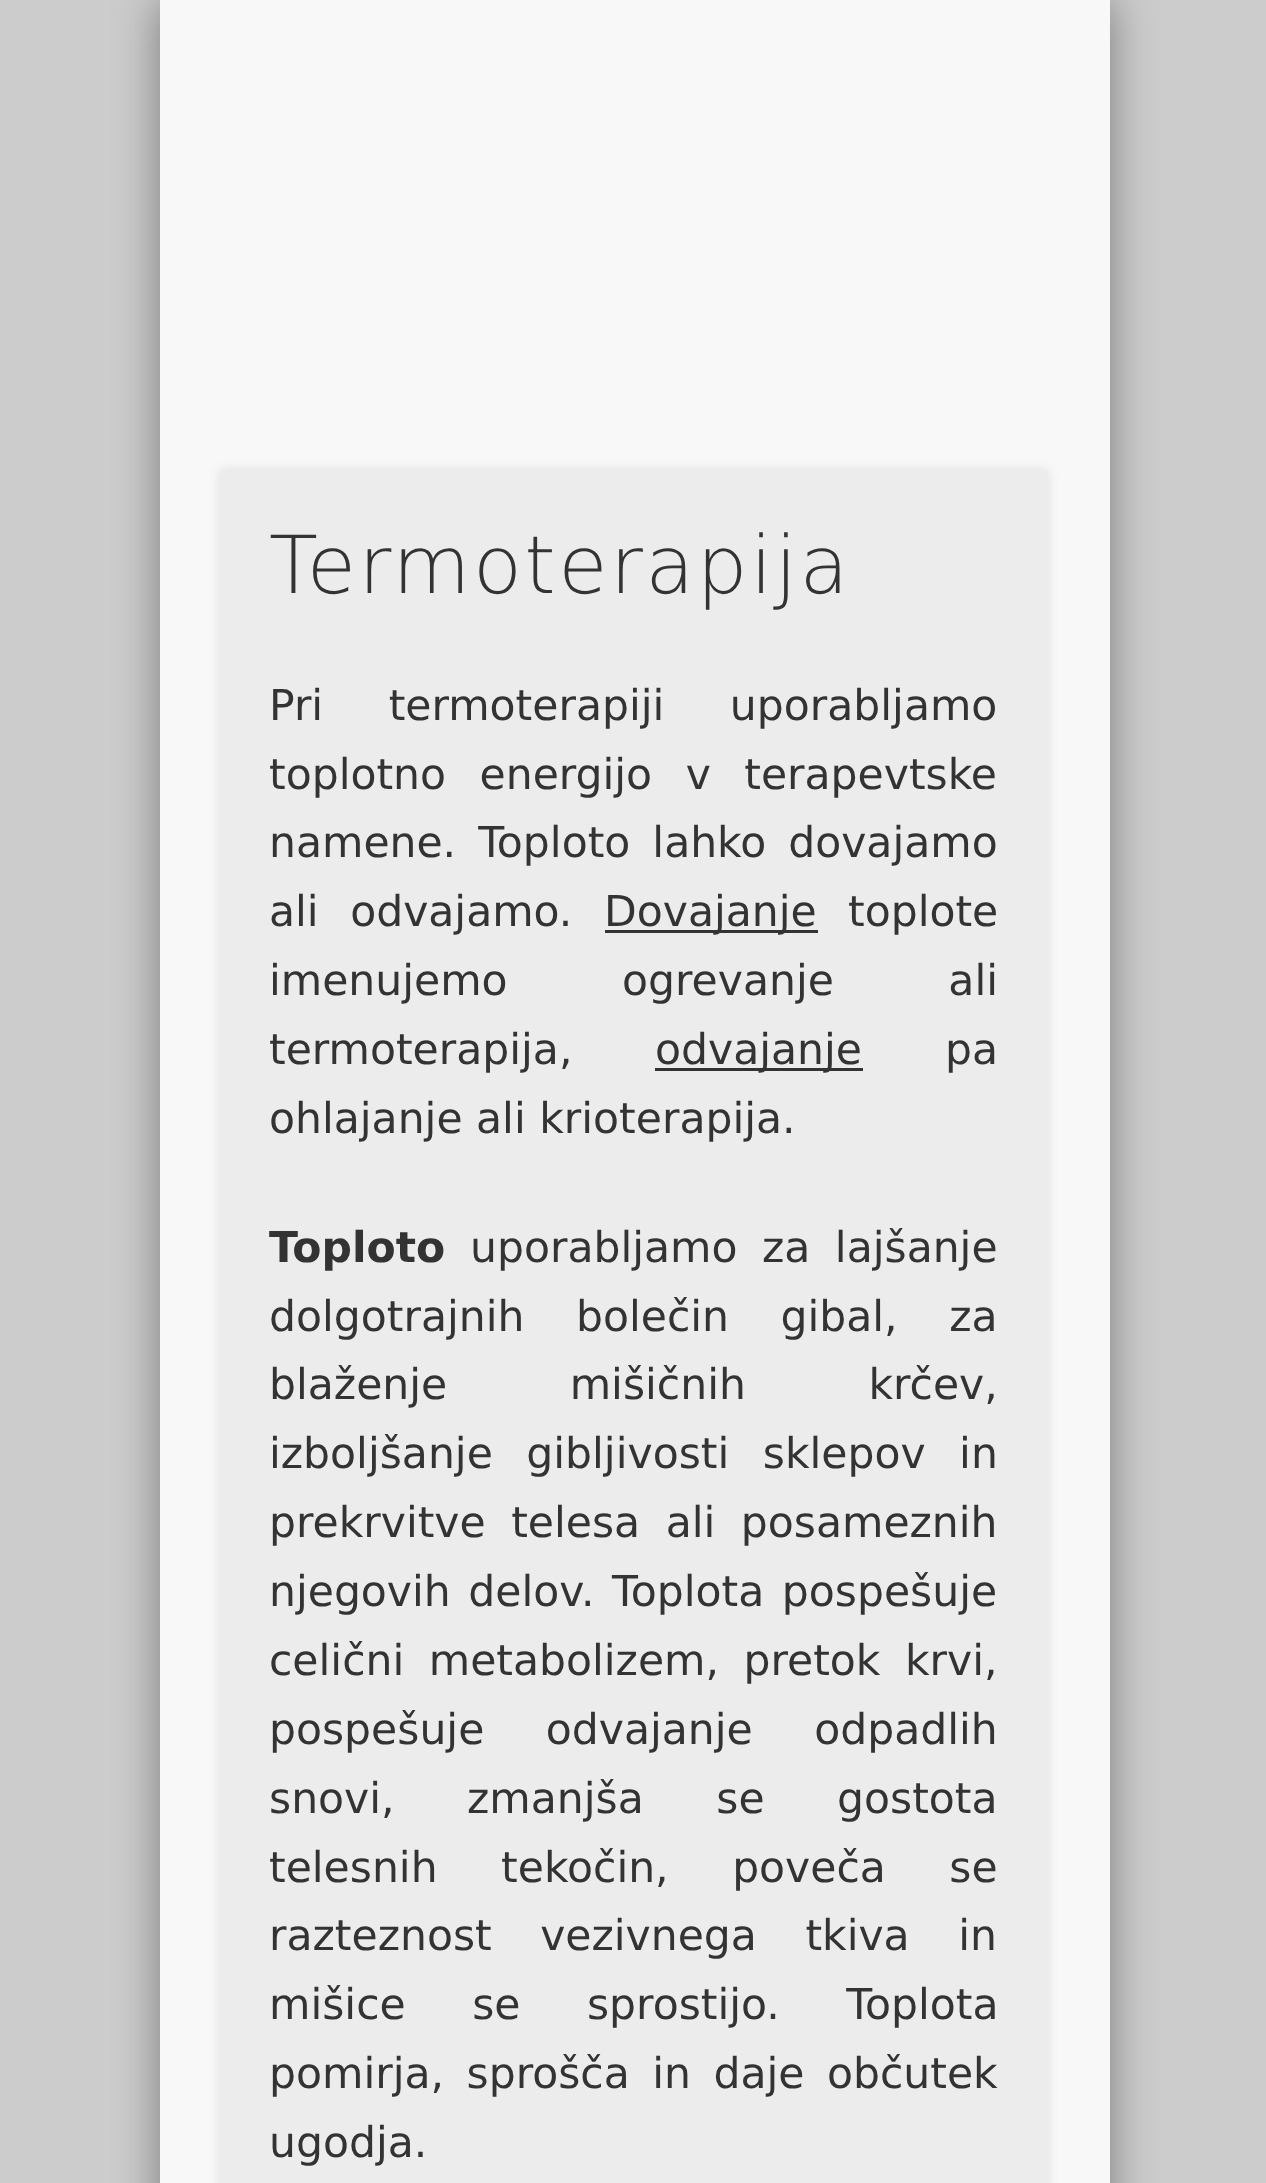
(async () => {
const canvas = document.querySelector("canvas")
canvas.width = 1266
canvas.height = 2183
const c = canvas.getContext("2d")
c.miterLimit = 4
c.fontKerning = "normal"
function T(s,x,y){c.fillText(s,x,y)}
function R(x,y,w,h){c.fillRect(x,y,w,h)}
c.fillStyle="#ccc"
R(0,0,1266,2183)
c.fillStyle="#00000066"
c.filter="blur(22.5px)"
c.beginPath()
c.rect(160,0,950,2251)
c.fill()
c.filter="none"
c.fillStyle="#f8f8f8"
R(160,0,950,2183)
c.fillStyle="#0000001a"
c.filter="blur(6px)"
c.beginPath()
c.rect(220,470,828,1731)
c.fill()
c.filter="none"
c.fillStyle="#edecec"
R(220,470,828,1713)
c.letterSpacing="2.5px"
c.font="200 80px DejaVu Sans"
c.fillStyle="#333"
T("Termoterapija",269,593)
c.letterSpacing="0px"
c.wordSpacing="52px"
c.font="42.5px DejaVu Sans"
T("Pri termoterapiji uporabljamo",269,720)
c.wordSpacing="20px"
T("toplotno energijo v terapevtske",269,789)
c.wordSpacing="8.5px"
T("namene. Toploto lahko dovajamo",269,857)
c.wordSpacing="18px"
T("ali odvajamo.",269,926)
R(605,930,213,3)
c.wordSpacing="0px"
T("Dovajanje",604,926)
T("toplote",848,926)
c.wordSpacing="101px"
T("imenujemo ogrevanje ali",269,995)
c.wordSpacing="0px"
T("termoterapija,",269,1064)
R(655,1068,208,3)
T("odvajanje",655,1064)
T("pa",945,1064)
T("ohlajanje ali krioterapija.",269,1133)
c.font="bold 42.5px DejaVu Sans"
T("Toploto",269,1262)
c.wordSpacing="11px"
c.font="42.5px DejaVu Sans"
T("uporabljamo za lajšanje",470,1262)
c.wordSpacing="38px"
T("dolgotrajnih bolečin gibal, za",269,1331)
c.wordSpacing="109px"
T("blaženje mišičnih krčev,",269,1399)
c.wordSpacing="20px"
T("izboljšanje gibljivosti sklepov in",269,1468)
c.wordSpacing="12px"
T("prekrvitve telesa ali posameznih",269,1537)
c.wordSpacing="4px"
T("njegovih delov. Toplota pospešuje",269,1606)
c.wordSpacing="11px"
T("celični metabolizem, pretok krvi,",269,1675)
c.wordSpacing="48px"
T("pospešuje odvajanje odpadlih",269,1744)
c.wordSpacing="59px"
T("snovi, zmanjša se gostota",269,1813)
c.wordSpacing="50px"
T("telesnih tekočin, poveča se",269,1882)
c.wordSpacing="35px"
T("razteznost vezivnega tkiva in",269,1950)
c.wordSpacing="53px"
T("mišice se sprostijo. Toplota",269,2019)
c.wordSpacing="9px"
T("pomirja, sprošča in daje občutek",269,2088)
c.wordSpacing="0px"
T("ugodja.",269,2157)
})()
